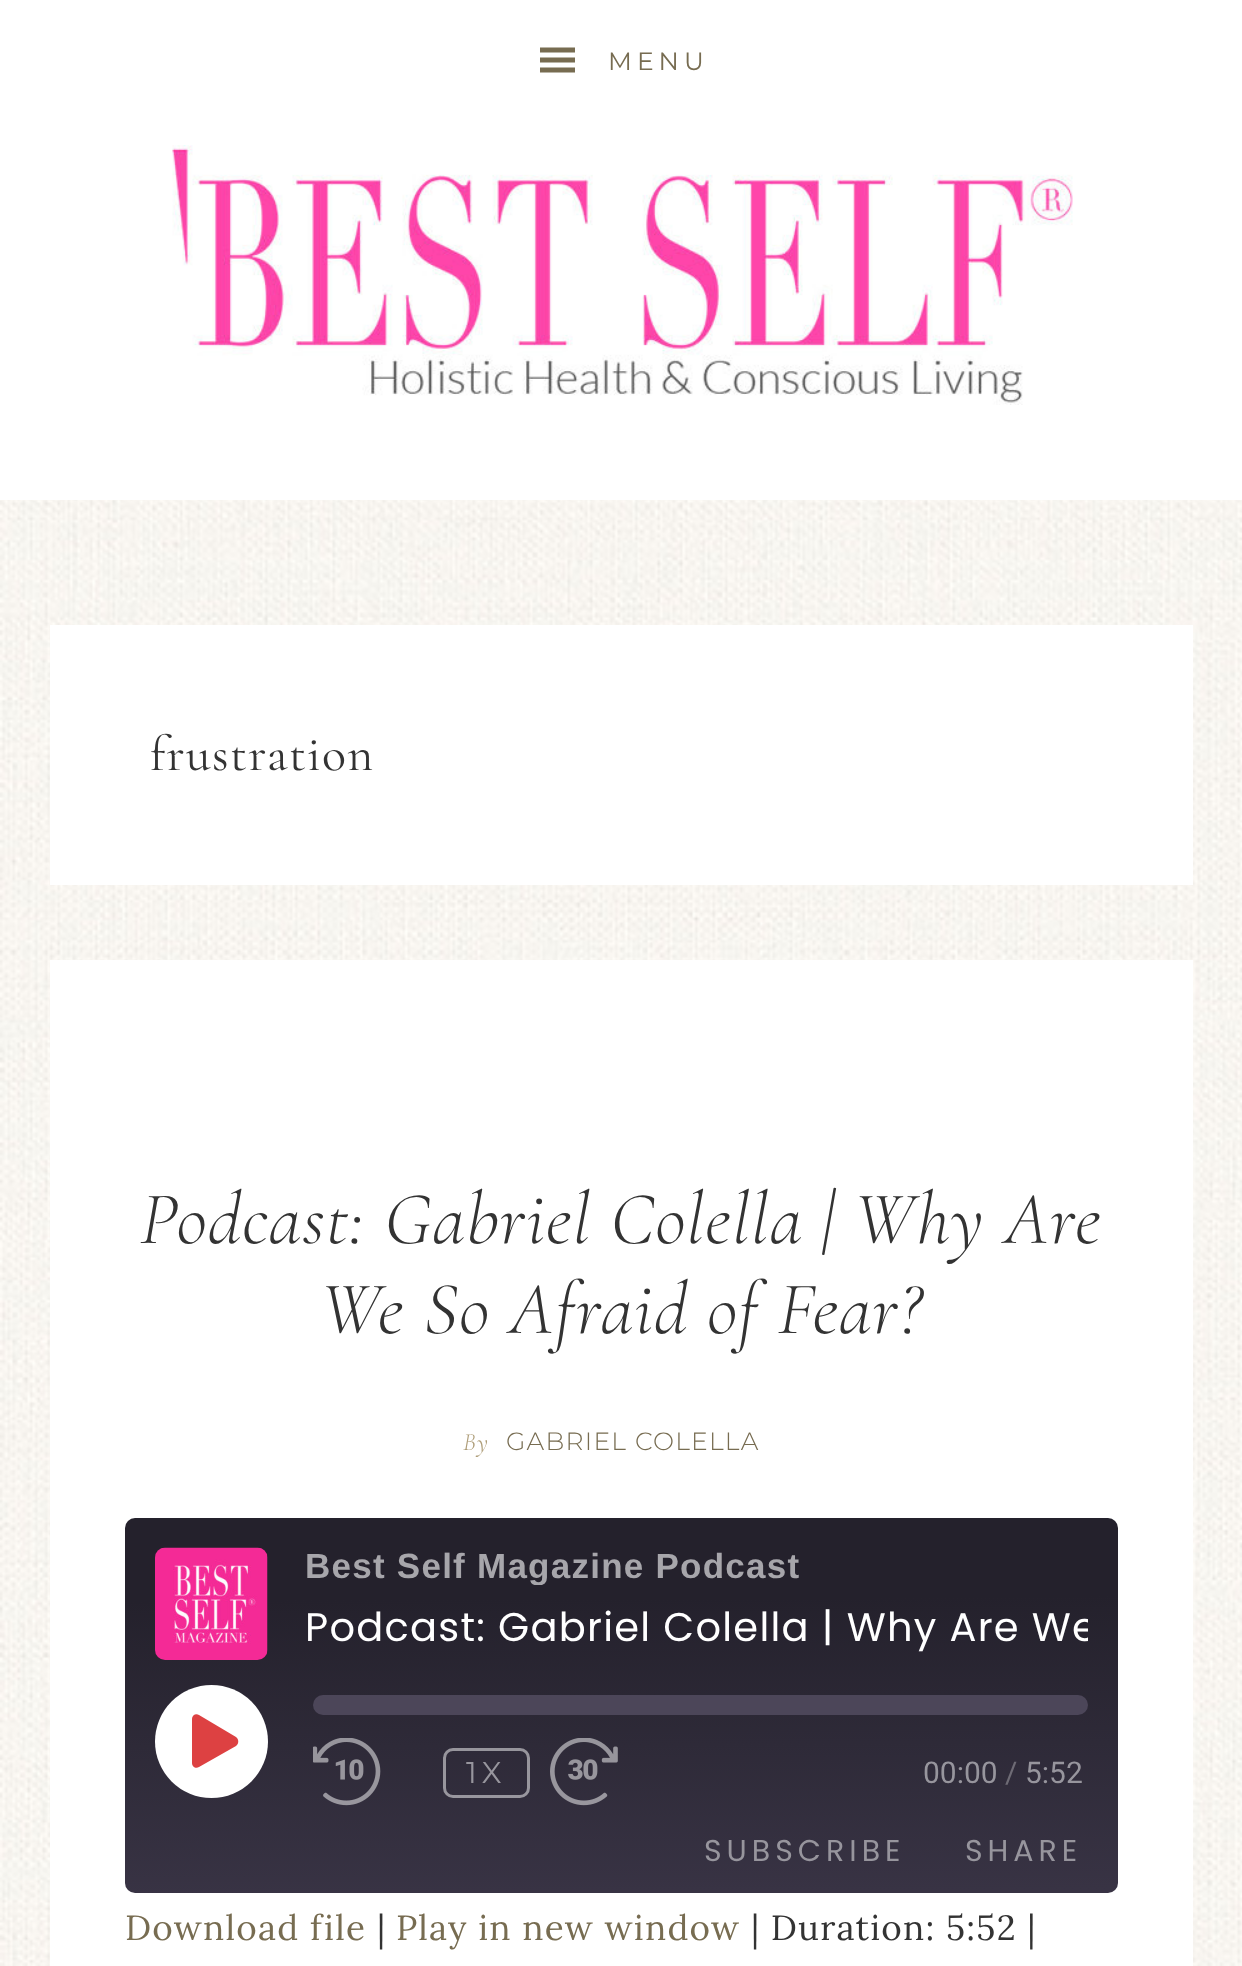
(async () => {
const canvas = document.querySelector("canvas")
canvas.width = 1242
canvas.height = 1966
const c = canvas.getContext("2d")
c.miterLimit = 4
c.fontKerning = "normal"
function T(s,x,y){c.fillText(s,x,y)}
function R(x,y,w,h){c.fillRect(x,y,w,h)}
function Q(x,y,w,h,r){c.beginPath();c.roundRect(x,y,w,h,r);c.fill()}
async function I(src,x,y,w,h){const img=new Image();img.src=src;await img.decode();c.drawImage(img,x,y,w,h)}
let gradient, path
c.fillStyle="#fff"
R(0,0,1242,1966)
await I("1.png",0,500,1242,1466)
c.fillStyle="#776c51"
path = new Path2D("M540 72.5h35v-5h-35zm0-25v5h35v-5zm0 15h35v-5h-35z")
c.fill(path)
c.letterSpacing="5px"
c.font="25px Montserrat"
T("MENU",608,70)
await I("2.png",172,145,901,260)
c.fillStyle="#fff"
R(50,625,1143,260)
c.letterSpacing="1.25px"
c.font="50px Cormorant Garamond"
c.fillStyle="#333"
T("frustration",150,770)
c.fillStyle="#fff"
R(50,960,1143,1006)
c.font="italic 300 75px Cormorant Garamond"
c.fillStyle="#333"
T("Podcast: Gabriel Colella | Why Are",140,1243)
T("We So Afraid of Fear?",320,1333)
c.font="italic 300 25px Cormorant Garamond"
c.fillStyle="#ae9d78"
T("By",463,1450)
c.font="300 25px Montserrat"
c.fillStyle="#776c51"
T("GABRIEL COLELLA",506,1450)
gradient = c.createLinearGradient(622,1895,620,1515)
gradient.addColorStop(.01,"#383344")
gradient.addColorStop(.78,"#24212c")
c.fillStyle = gradient
Q(125,1518,993,375,10)
await I("3.png",155,1547,113,113)
c.save()
c.beginPath()
c.rect(305,1548,783,37)
c.clip()
c.font="bold 35px Liberation Sans"
c.fillStyle="#a7a6ab"
T("Best Self Magazine Podcast",305,1578)
c.restore()
c.save()
c.beginPath()
c.rect(305,1603,783,62)
c.clip()
c.font="40px Poppins"
c.fillStyle="#fff"
T("Podcast: Gabriel Colella | Why Are We",305,1641)
c.restore()
c.fillStyle="#fff"
c.beginPath()
c.arc(211.5,1741.5,56.5,0,7)
c.fill()
c.fillStyle="#dd4142"
path = new Path2D("M236 1737l-37-22c-3-2-7 0-7 4v44c0 4 4 6 7 4l37-21c3-2 3-7 0-9z")
c.fill(path)
c.fillStyle="#4c4659"
Q(313,1695,775,20,10)
await I("4.png",313,1738,68,68)
c.beginPath()
c.roundRect(444.5,1749.5,84,47,8.5)
c.strokeStyle="#ffffff80"
c.lineWidth=3
c.stroke()
c.letterSpacing="5px"
c.font="30px Montserrat"
c.fillStyle="#97959d"
T("1X",466,1783)
await I("5.png",550,1738,68,68)
c.letterSpacing="0px"
c.font="30px Roboto"
T("00:00",923,1783)
c.fillStyle="#6e6b75"
T("/",1005,1783)
c.fillStyle="#97959d"
T("5:52",1025,1783)
c.letterSpacing="5px"
c.font="30px Poppins"
T("SUBSCRIBE",704,1861)
T("SHARE",965,1861)
c.letterSpacing="1.25px"
c.font="35px Lora"
c.fillStyle="#776c51"
T("Download file",125,1940)
c.fillStyle="#333"
T("|",377,1940)
c.fillStyle="#776c51"
T("Play in new window",396,1940)
c.fillStyle="#333"
T("| Duration: 5:52 |",751,1940)
})()
